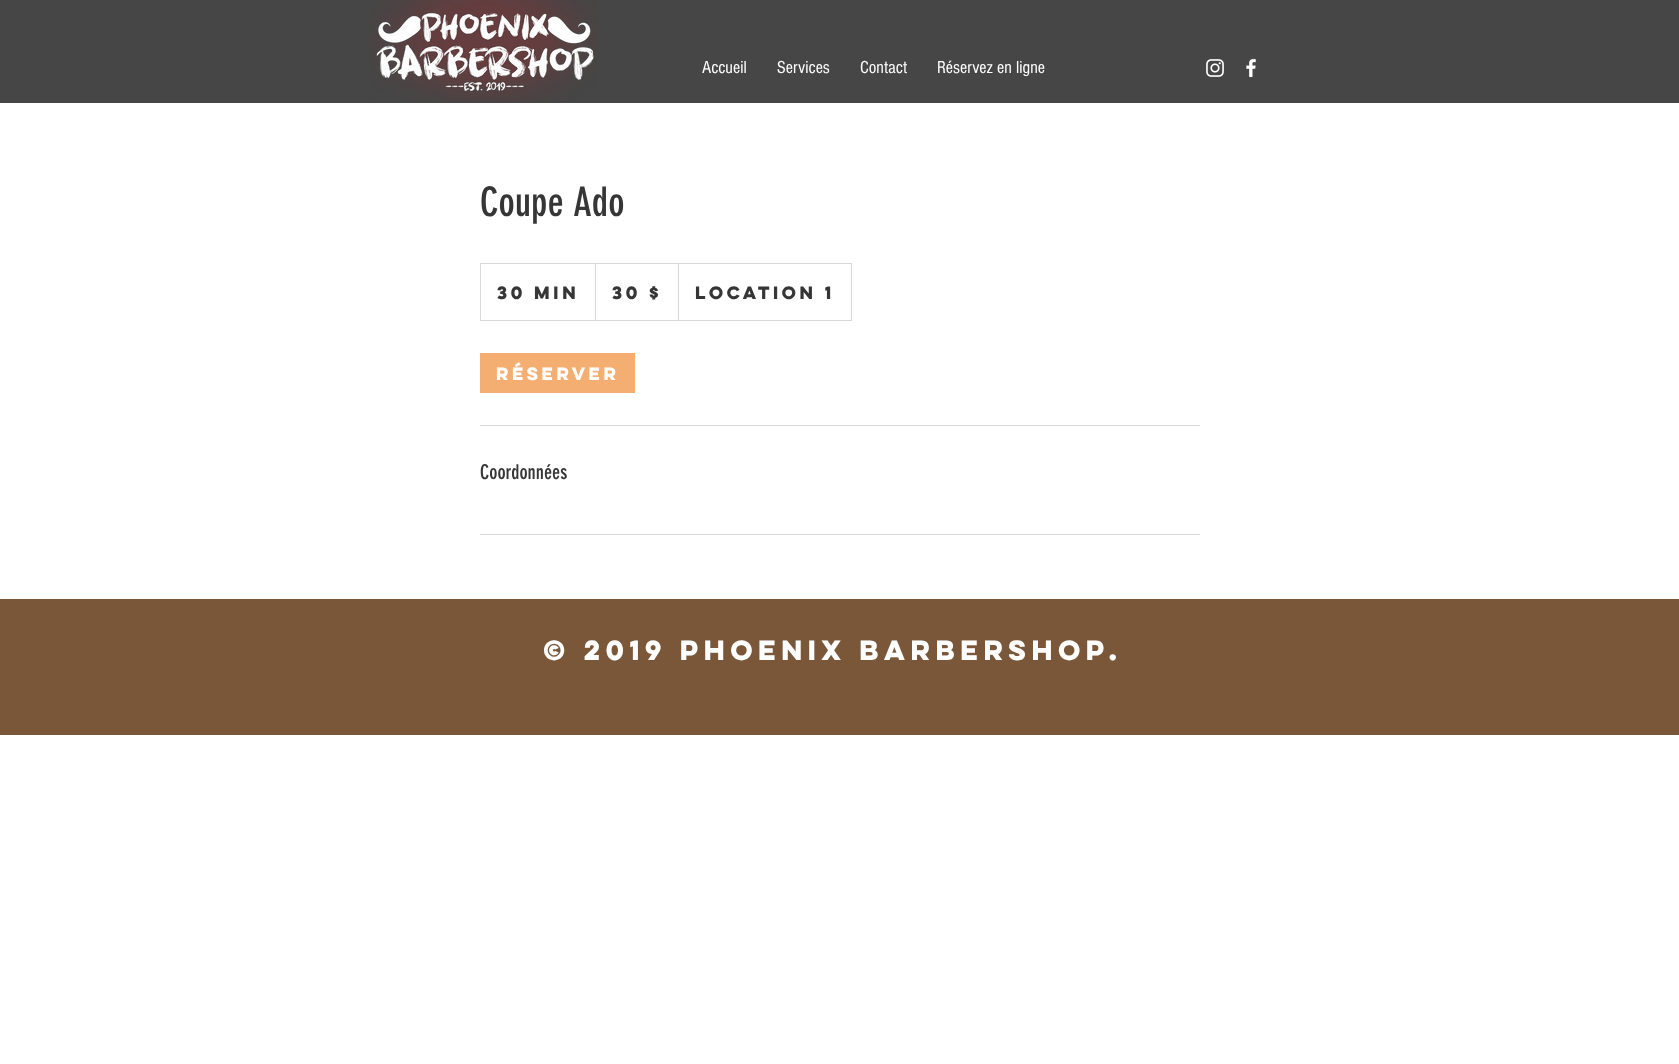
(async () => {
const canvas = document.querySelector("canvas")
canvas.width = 1679
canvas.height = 1064
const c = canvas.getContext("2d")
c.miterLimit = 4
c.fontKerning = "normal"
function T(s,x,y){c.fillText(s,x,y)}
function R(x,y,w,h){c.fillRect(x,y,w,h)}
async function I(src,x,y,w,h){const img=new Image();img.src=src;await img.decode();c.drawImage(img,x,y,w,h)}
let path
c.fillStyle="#fff"
R(0,0,1679,1064)
c.fillStyle="#464646"
R(0,0,1679,103)
await I("1.png",370,0,228,103)
c.font="18px 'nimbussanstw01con'"
c.fillStyle="#fff"
T("Accueil",702,73)
T("Services",777,73)
T("Contact",860,73)
T("Réservez en ligne",937,73)
await I("2.png",1206,59,18,18)
await I("3.png",1246,58,10,20)
c.font="40px 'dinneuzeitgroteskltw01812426'"
c.fillStyle="#363636"
T("Coupe Ado",480,216)
c.strokeStyle="#d7d7d7"
c.strokeRect(480.5,263.5,371,57)
c.font="bold 16px 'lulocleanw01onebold'"
T("30 min",497,299)
c.fillStyle="#d7d7d7"
path = new Path2D("M595 320v-57l1 1v56z")
c.fill(path)
c.fillStyle="#363636"
T("30 $",612,299)
c.fillStyle="#d7d7d7"
path = new Path2D("M678 320v-57l1 1v56z")
c.fill(path)
c.fillStyle="#363636"
T("Location 1",695,299)
c.fillStyle="#f5ae71"
R(480,353,155,40)
c.fillStyle="#fff"
T("Réserver",496,380)
c.fillStyle="#d7d7d7"
R(480,425,720,1)
c.font="20px 'dinneuzeitgroteskltw01812426'"
c.fillStyle="#363636"
T("Coordonnées",480,479)
c.fillStyle="#d7d7d7"
R(480,534,720,1)
c.fillStyle="#7b5739"
R(0,599,1679,136)
c.font="bold 25px 'lulocleanw01onebold'"
c.fillStyle="#fff"
T("© 2019 Phoenix Barbershop.",543,660)
})()
